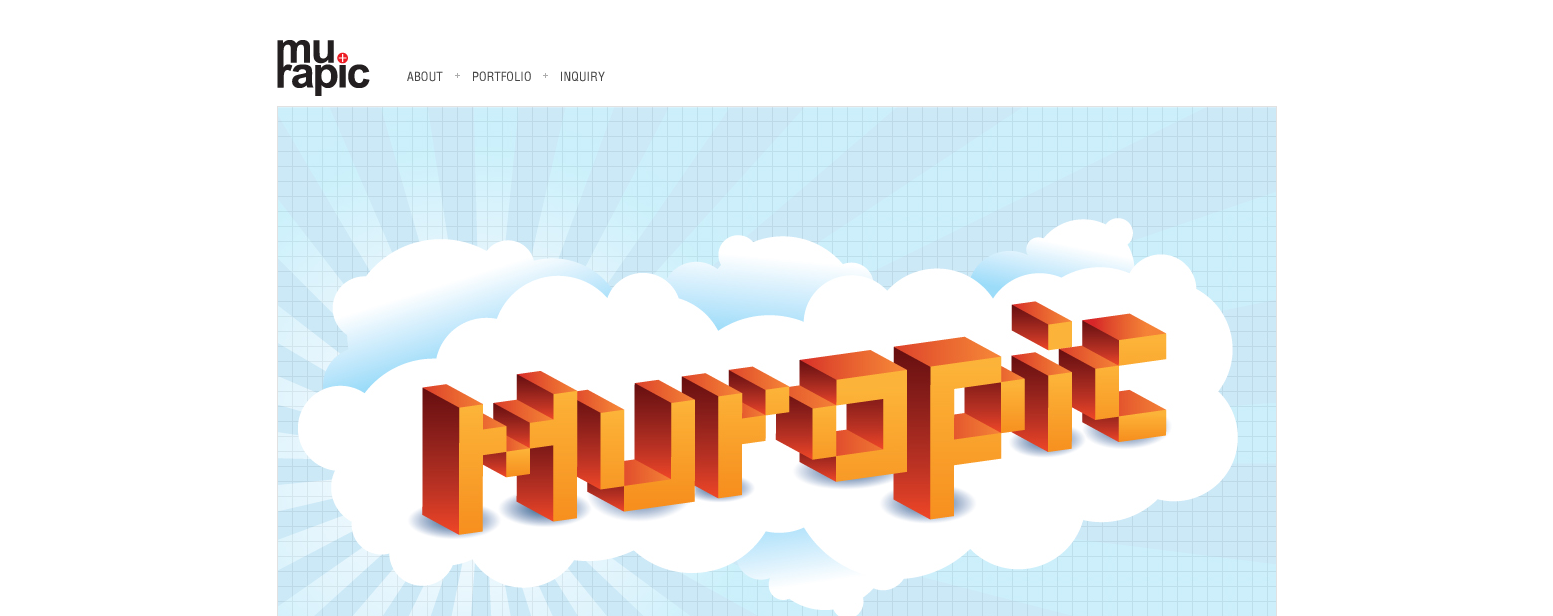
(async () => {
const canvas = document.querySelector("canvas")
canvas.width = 1553
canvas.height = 616
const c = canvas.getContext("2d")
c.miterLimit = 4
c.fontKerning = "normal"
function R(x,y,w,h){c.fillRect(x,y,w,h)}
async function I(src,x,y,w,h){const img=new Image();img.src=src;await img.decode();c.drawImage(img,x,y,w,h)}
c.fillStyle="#fff"
R(0,0,1553,616)
await I("1.png",277,40,93,56)
await I("2.png",407,71,36,11)
await I("3.png",455,73,5,5)
await I("4.png",473,71,58,10)
await I("3.png",543,73,5,5)
await I("5.png",561,71,44,11)
c.strokeStyle="#e1e1e1"
c.strokeRect(277.5,106.5,999,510)
await I("6.png",278,107,998,509)
})()
